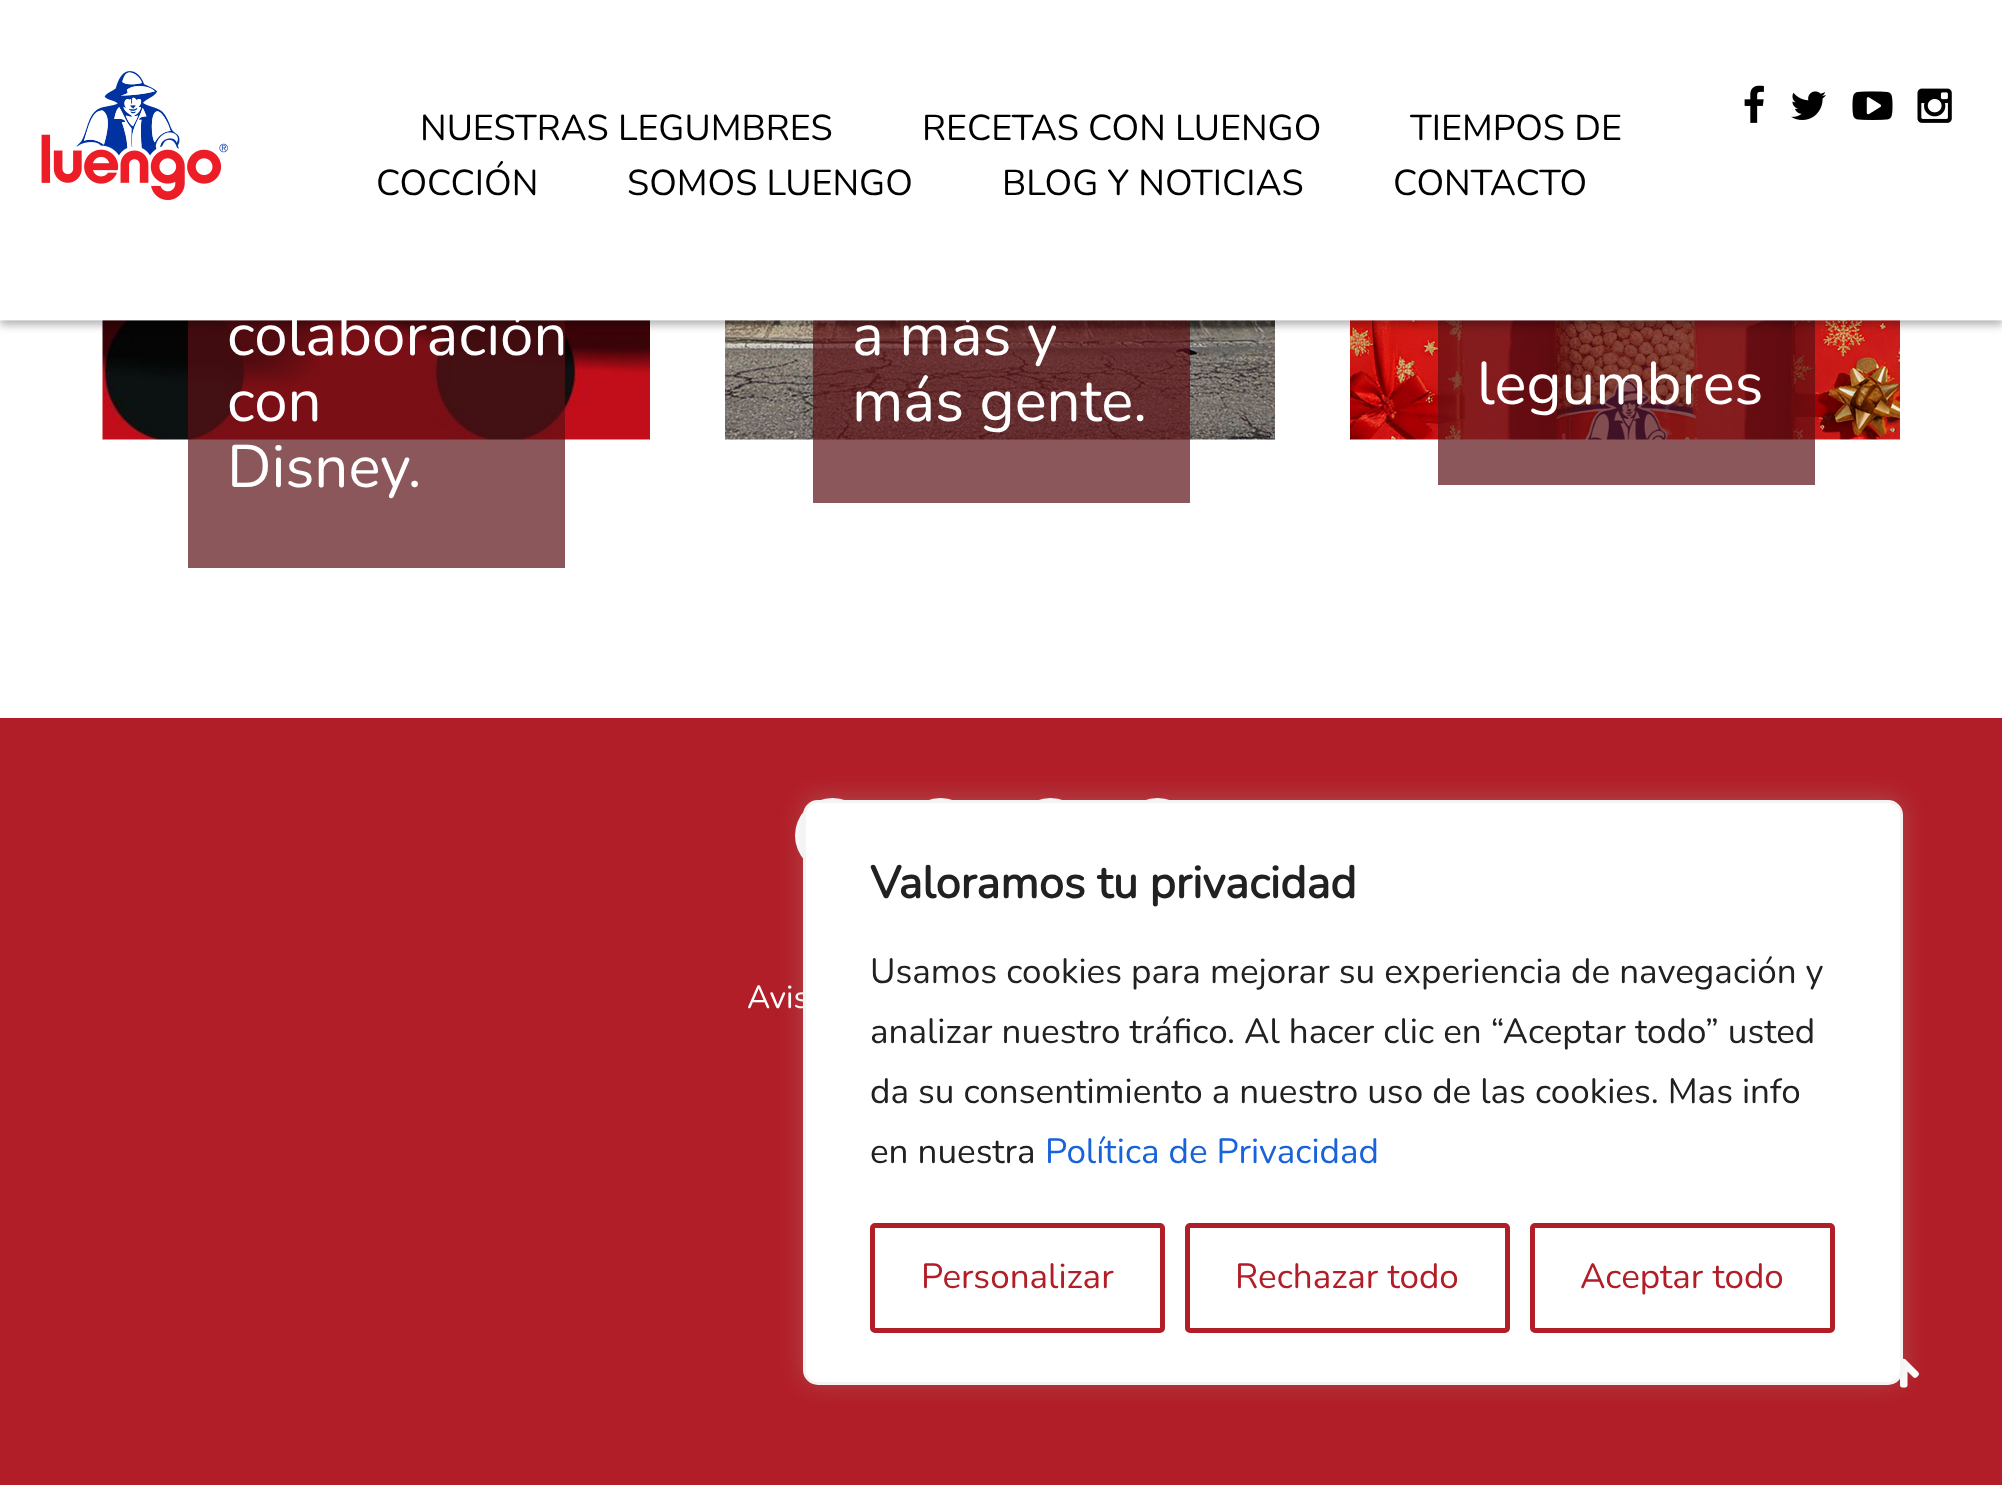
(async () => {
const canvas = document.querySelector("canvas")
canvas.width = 2002
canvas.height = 1485
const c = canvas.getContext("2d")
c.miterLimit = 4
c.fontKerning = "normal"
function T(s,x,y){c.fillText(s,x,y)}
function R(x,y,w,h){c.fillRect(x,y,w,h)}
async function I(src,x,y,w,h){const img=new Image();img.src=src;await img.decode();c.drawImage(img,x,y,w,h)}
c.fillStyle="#fff"
R(0,0,2002,1485)
await I("7.png",102,320,548,120)
c.fillStyle="#5b0f14b3"
R(188,320,377,248)
await I("8.png",725,320,550,120)
R(813,320,377,183)
await I("9.png",1350,320,550,120)
R(1438,320,377,165)
c.fillStyle="#0000004d"
c.filter="blur(4px)"
c.beginPath()
c.rect(0,5,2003,320)
c.fill()
c.filter="none"
c.fillStyle="#fff"
R(0,0,2002,320)
c.font="200 60px Nunito"
T("colaboración",227,355)
T("a más y",852,355)
c.fillStyle="#ffffff66"
R(0,320,2002,1)
await I("1.png",41,71,187,130)
await I("2.png",1744,85,20,38)
await I("3.png",1791,91,35,29)
await I("4.png",1852,91,41,29)
await I("5.png",1917,88,35,35)
c.font="200 36px Nunito"
c.fillStyle="#000"
T("NUESTRAS LEGUMBRES",420,140)
T("RECETAS CON LUENGO",922,140)
T("TIEMPOS DE",1410,140)
T("COCCIÓN",376,195)
T("SOMOS LUENGO",627,195)
T("BLOG Y NOTICIAS",1002,195)
T("CONTACTO",1393,195)
c.fillStyle="#b21e27"
R(0,718,2002,767)
await I("6.png",1900,1358,19,30)
c.font="200 60px Nunito"
c.fillStyle="#fff"
T("con",227,421)
T("Disney.",227,487)
T("más gente.",852,421)
T("legumbres",1477,404)
c.beginPath()
c.arc(832.5,835.5,37.5,0,7)
c.fill()
c.beginPath()
c.arc(940.5,835.5,37.5,0,7)
c.fill()
c.beginPath()
c.arc(1050.5,835.5,37.5,0,7)
c.fill()
c.beginPath()
c.arc(1157.5,835.5,37.5,0,7)
c.fill()
c.font="200 32px Nunito"
T("Avis",747,1008)
c.fillStyle="#acabab4d"
c.filter="blur(12.5px)"
c.beginPath()
c.roundRect(803,798,1100,585,15)
c.fill()
c.filter="none"
c.fillStyle="#fff"
c.beginPath()
c.roundRect(804.5,801.5,1097,582,13.5)
c.fill()
c.strokeStyle="#f4f4f4"
c.lineWidth=3
c.stroke()
c.font="bold 45px Nunito"
c.fillStyle="#212121"
T("Valoramos tu privacidad",870,898)
c.font="200 35px Nunito"
T("Usamos cookies para mejorar su experiencia de navegación y",870,983)
T("analizar nuestro tráfico. Al hacer clic en “Aceptar todo” usted",870,1043)
T("da su consentimiento a nuestro uso de las cookies. Mas info",870,1103)
T("en nuestra",870,1163)
c.fillStyle="#1863dc"
T("Política de Privacidad",1045,1163)
c.beginPath()
c.roundRect(872.5,1225.5,290,105,2.5)
c.strokeStyle="#b21e27"
c.lineWidth=5
c.stroke()
c.fillStyle="#b21e27"
T("Personalizar",921,1288)
c.beginPath()
c.roundRect(1187.5,1225.5,320,105,2.5)
c.stroke()
T("Rechazar todo",1235,1288)
c.beginPath()
c.roundRect(1532.5,1225.5,300,105,2.5)
c.stroke()
T("Aceptar todo",1580,1288)
})()
